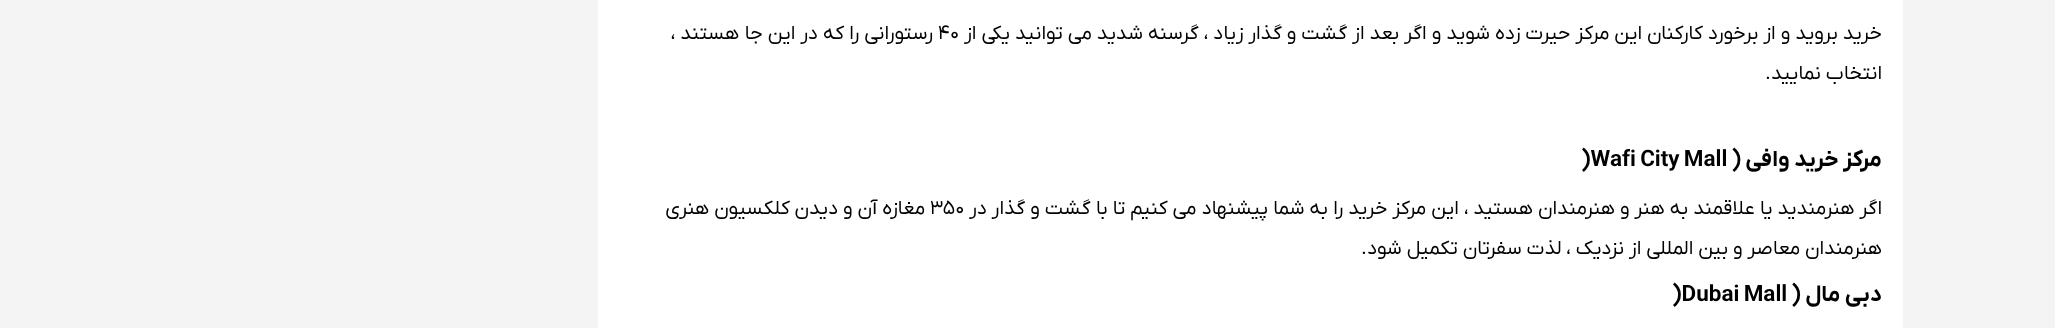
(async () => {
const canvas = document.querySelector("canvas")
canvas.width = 2055
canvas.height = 328
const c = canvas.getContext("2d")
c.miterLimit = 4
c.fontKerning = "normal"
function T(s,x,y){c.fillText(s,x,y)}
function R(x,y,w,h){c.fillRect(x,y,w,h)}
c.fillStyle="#f4f4f4"
R(0,0,2055,328)
c.fillStyle="#fff"
R(598,0,1305,328)
c.direction="rtl"
c.font="20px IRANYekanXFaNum"
c.fillStyle="#000"
T("خرید بروید و از برخورد کارکنان این مرکز حیرت زده شوید و اگر بعد از گشت و گذار زیاد ، گرسنه شدید می توانید یکی از",1882,39)
c.direction="ltr"
T("40",938,39)
c.direction="rtl"
T("رستورانی را که در این جا هستند ،",933,39)
T("انتخاب نمایید.",1882,79)
c.font="bold 22.5px IRANYekanXFaNum"
T("مرکز خرید وافی (",1882,166)
c.direction="ltr"
T(")Wafi City Mall",1581,166)
c.direction="rtl"
c.font="20px IRANYekanXFaNum"
T("اگر هنرمندید یا علاقمند به هنر و هنرمندان هستید ، این مرکز خرید را به شما پیشنهاد می کنیم تا با گشت و گذار در",1882,214)
c.direction="ltr"
T("350",930,214)
c.direction="rtl"
T("مغازه آن و دیدن کلکسیون هنری",925,214)
T("هنرمندان معاصر و بین المللی از نزدیک ، لذت سفرتان تکمیل شود.",1882,254)
c.font="bold 22.5px IRANYekanXFaNum"
T("دبی مال (",1882,301)
c.direction="ltr"
T(")Dubai Mall",1672,301)
})()
